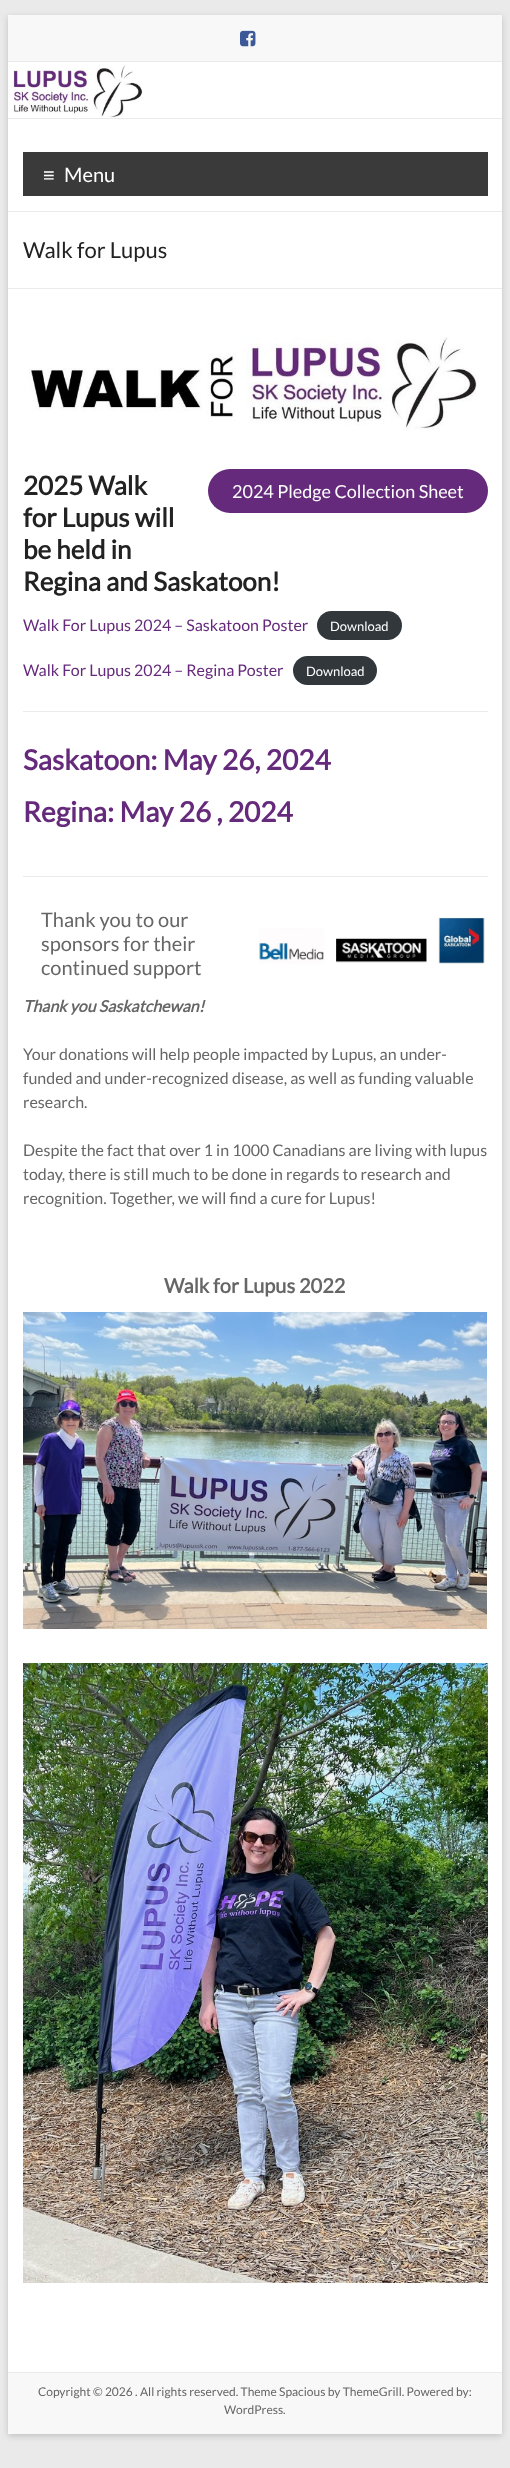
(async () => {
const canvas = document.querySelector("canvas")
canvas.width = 510
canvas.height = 2468
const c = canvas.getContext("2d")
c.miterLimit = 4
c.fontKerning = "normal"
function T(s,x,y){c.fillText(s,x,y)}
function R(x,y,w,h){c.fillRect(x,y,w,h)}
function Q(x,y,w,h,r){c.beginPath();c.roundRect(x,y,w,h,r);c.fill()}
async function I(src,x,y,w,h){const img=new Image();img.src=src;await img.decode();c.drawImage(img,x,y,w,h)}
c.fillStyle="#eaeaea"
R(0,0,510,2468)
c.fillStyle="#6464644d"
c.filter="blur(3px)"
c.beginPath()
c.rect(8,17,494,2419)
c.fill()
c.filter="none"
c.fillStyle="#fff"
R(8,62,494,2310)
c.fillStyle="#f8f8f8"
R(8,15,494,46)
c.fillStyle="#eaeaea"
R(8,61,494,1)
await I("1.png",240,30,16,17)
await I("2.png",13,65,130,53)
R(8,118,494,1)
R(8,211,494,1)
c.fillStyle="#3a3a3a"
R(23,152,465,44)
c.font="20px Liberation Sans"
c.fillStyle="#fff"
T("≡",43,182)
c.font="20px Lato"
T("Menu",64,182)
c.fillStyle="#eaeaea"
R(8,288,494,1)
c.font="22px Lato"
c.fillStyle="#222"
T("Walk for Lupus",23,258)
await I("3.png",28,337,450,94)
c.font="bold 26px Lato"
T("2025 Walk",23,495)
T("for Lupus will",23,527)
T("be held in",23,559)
T("Regina and Saskatoon!",23,591)
c.fillStyle="#652a7b"
Q(208,469,280,44,22)
c.font="18px Lato"
c.fillStyle="#fff"
T("2024 Pledge Collection Sheet",232,498)
c.font="16px Lato"
c.fillStyle="#652a7b"
T("Walk For Lupus 2024 – Saskatoon Poster",23,631)
c.fillStyle="#32373c"
Q(317,611,85,29,14.5)
c.font="13px Lato"
c.fillStyle="#fff"
T("Download",330,631)
c.font="16px Lato"
c.fillStyle="#652a7b"
T("Walk For Lupus 2024 – Regina Poster",23,676)
c.fillStyle="#32373c"
Q(293,656,84,29,14.5)
c.font="13px Lato"
c.fillStyle="#fff"
T("Download",306,676)
c.fillStyle="#eaeaea"
R(23,711,465,1)
c.font="bold 28px Lato"
c.fillStyle="#652a7b"
T("Saskatoon: May 26, 2024",23,770)
T("Regina: May 26 , 2024",23,822)
c.fillStyle="#eaeaea"
R(23,876,465,1)
c.font="20px Lato"
c.fillStyle="#666"
T("Thank you to our",41,927)
T("sponsors for their",41,951)
T("continued support",41,975)
await I("4.png",259,917,226,47)
c.font="italic bold 16px Lato"
T("Thank you Saskatchewan!",23,1012)
c.font="16px Lato"
T("Your donations will help people impacted by Lupus, an under-",23,1060)
T("funded and under-recognized disease, as well as funding valuable",23,1084)
T("research.",23,1108)
T("Despite the fact that over 1 in 1000 Canadians are living with lupus",23,1156)
T("today, there is still much to be done in regards to research and",23,1180)
T("recognition. Together, we will find a cure for Lupus!",23,1204)
c.font="bold 20px Lato"
T("Walk for Lupus 2022",164,1293)
await I("5.png",23,1312,464,317)
await I("6.png",23,1663,465,620)
c.fillStyle="#f8f8f8"
R(8,2373,494,61)
c.fillStyle="#eaeaea"
R(8,2372,494,1)
c.font="12px Lato"
c.fillStyle="#666"
T("Copyright © 2026 . All rights reserved. Theme Spacious by ThemeGrill. Powered by:",38,2396)
T("WordPress.",224,2414)
})()
